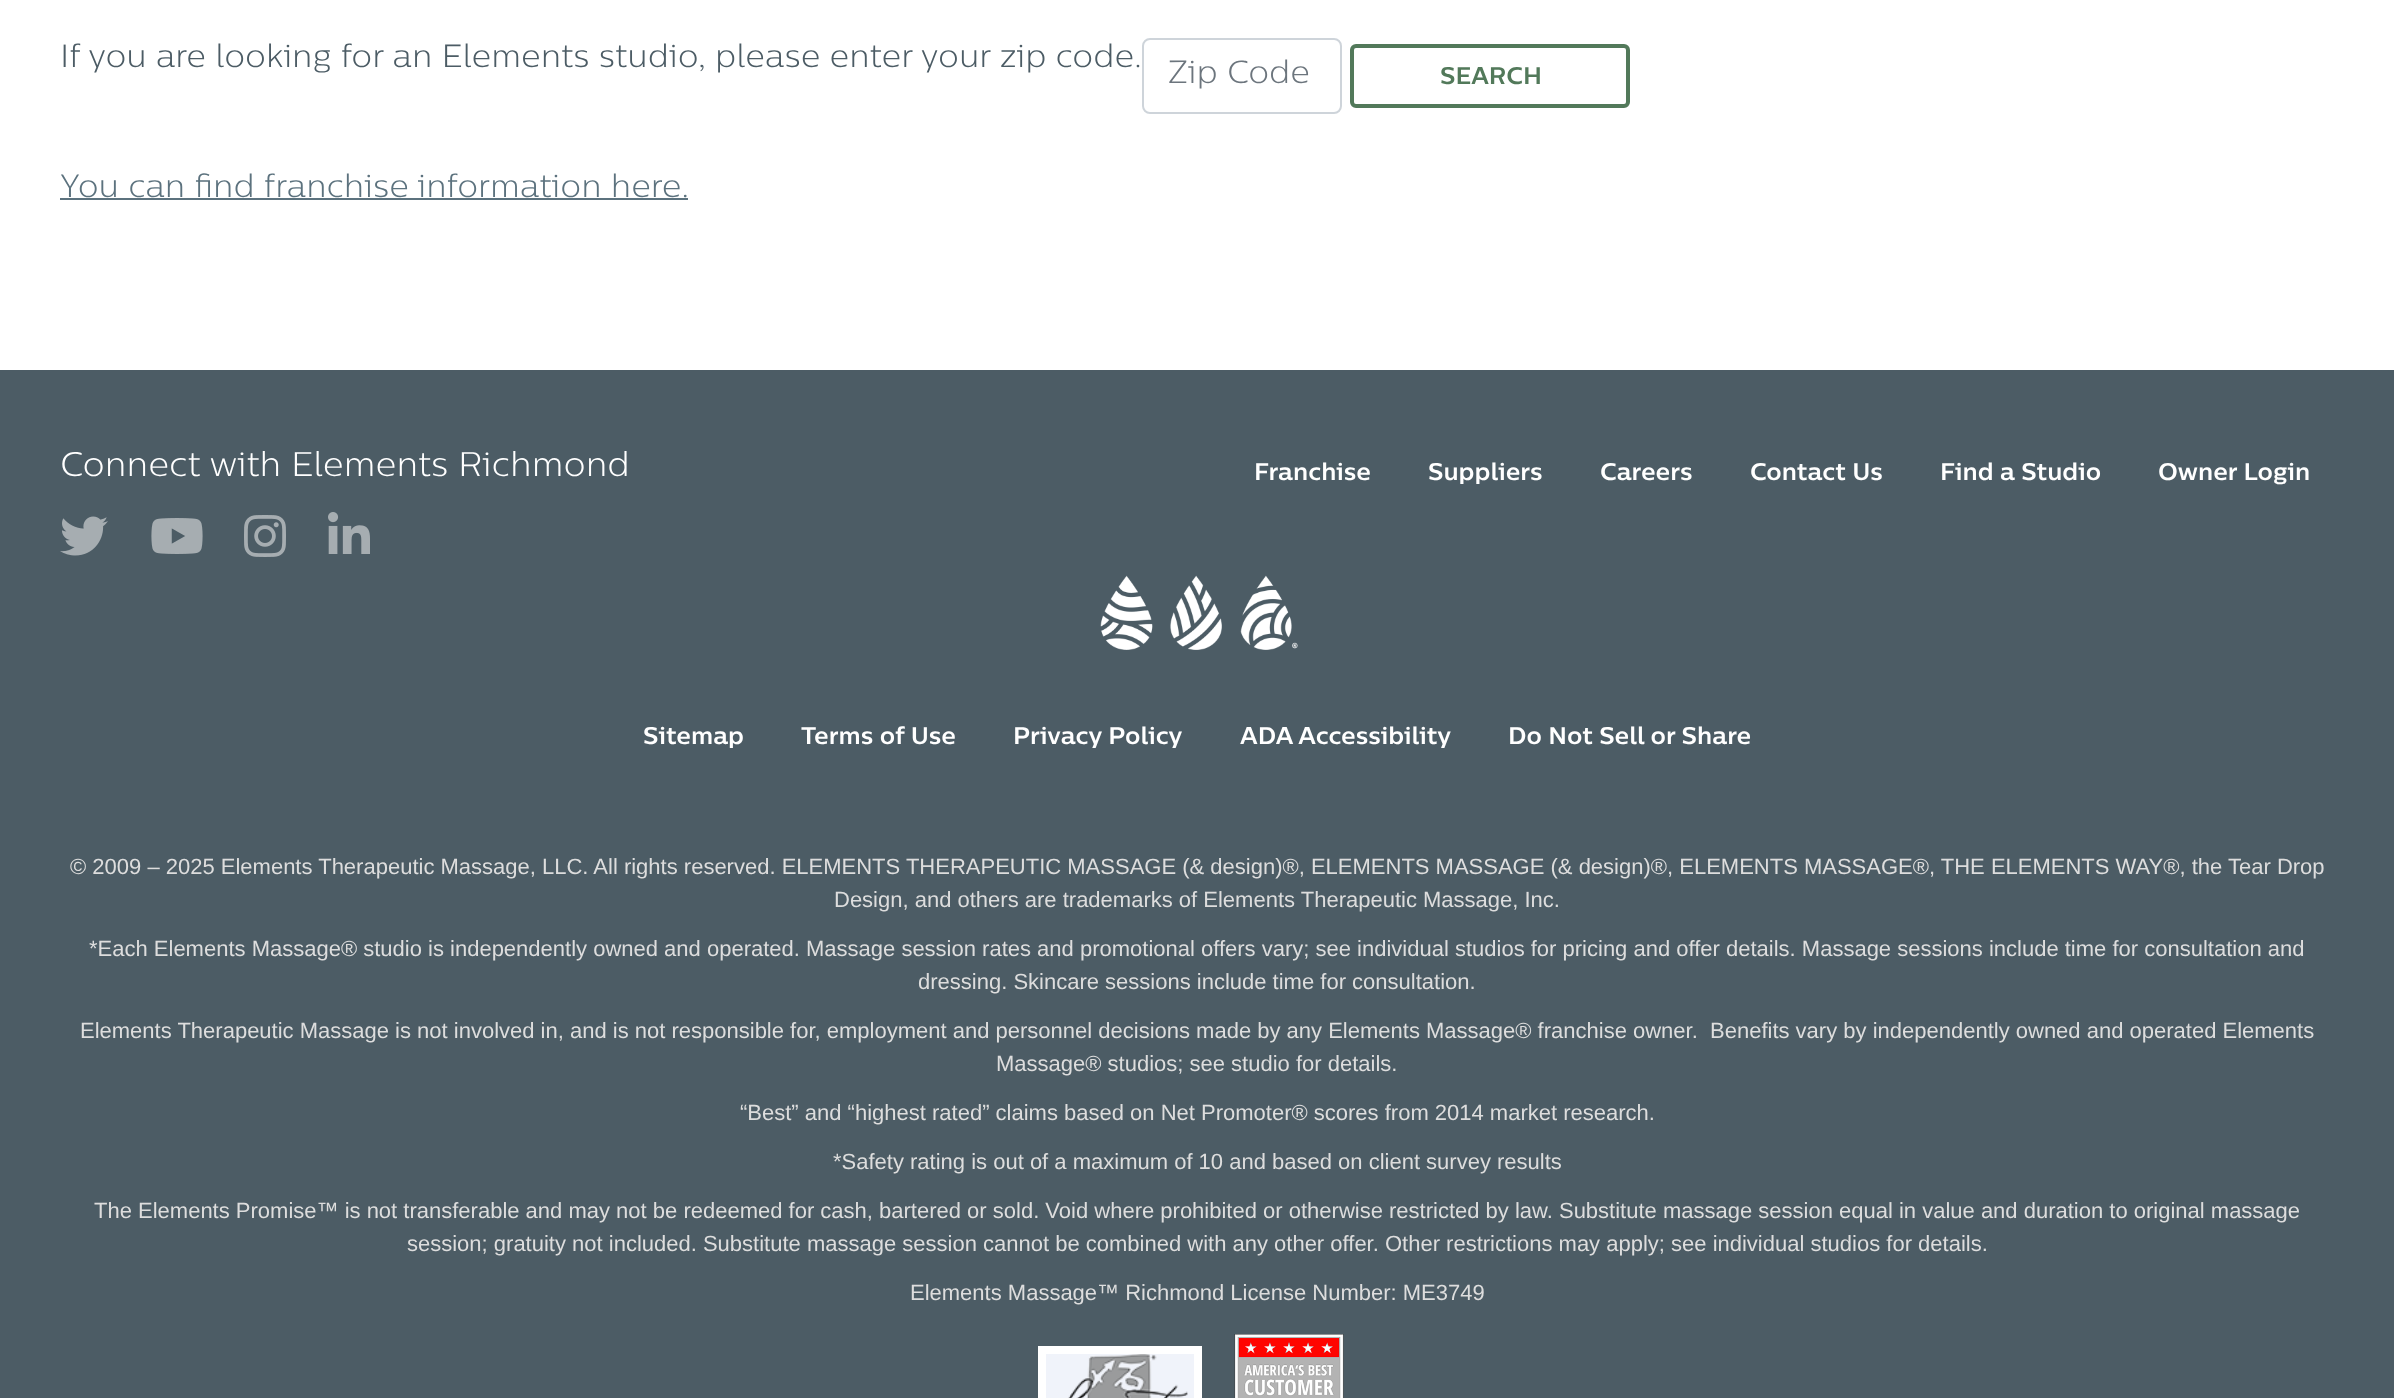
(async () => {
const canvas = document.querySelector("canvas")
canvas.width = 2394
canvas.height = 1398
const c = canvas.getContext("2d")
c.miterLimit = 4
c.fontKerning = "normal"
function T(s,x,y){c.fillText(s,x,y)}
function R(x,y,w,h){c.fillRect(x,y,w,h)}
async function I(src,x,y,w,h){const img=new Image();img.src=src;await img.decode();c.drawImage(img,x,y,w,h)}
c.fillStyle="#fff"
R(0,0,2394,1398)
c.font="300 32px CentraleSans"
c.fillStyle="#4c5c65"
T("If you are looking for an Elements studio, please enter your zip code.",60,67)
c.beginPath()
c.roundRect(1143,39,198,74,7)
c.strokeStyle="#ced4da"
c.lineWidth=2
c.stroke()
c.fillStyle="#6c757d"
T("Zip Code",1168,83)
c.beginPath()
c.roundRect(1352,46,276,60,4)
c.strokeStyle="#52795a"
c.lineWidth=4
c.stroke()
c.font="bold 24px CentraleSans"
c.fillStyle="#52795a"
T("SEARCH",1440,84)
c.font="300 32px CentraleSans"
c.fillStyle="#5c727e"
T("You can find franchise information here.",60,197)
R(60,198,628,2)
c.fillStyle="#4c5c65"
R(0,370,2394,1028)
c.font="300 34px CentraleSans"
c.fillStyle="#fff"
T("Connect with Elements Richmond",60,476)
await I("1.png",60,516,48,40)
await I("2.png",151,518,52,36)
await I("3.png",244,515,42,42)
await I("4.png",328,512,42,42)
c.font="bold 24px CentraleSans"
T("Franchise",1254,480)
T("Suppliers",1428,480)
T("Careers",1600,480)
T("Contact Us",1750,480)
T("Find a Studio",1940,480)
T("Owner Login",2158,480)
await I("5.png",1100,575,198,75)
T("Sitemap",643,744)
T("Terms of Use",801,744)
T("Privacy Policy",1013,744)
T("ADA Accessibility",1240,744)
T("Do Not Sell or Share",1508,744)
c.font="22px Liberation Sans"
c.fillStyle="#ddd"
T("© 2009 – 2025 Elements Therapeutic Massage, LLC. All rights reserved. ELEMENTS THERAPEUTIC MASSAGE (& design)®, ELEMENTS MASSAGE (& design)®, ELEMENTS MASSAGE®, THE ELEMENTS WAY®, the Tear Drop",70,874)
T("Design, and others are trademarks of Elements Therapeutic Massage, Inc.",834,907)
T("*Each Elements Massage® studio is independently owned and operated. Massage session rates and promotional offers vary; see individual studios for pricing and offer details. Massage sessions include time for consultation and",89,956)
T("dressing. Skincare sessions include time for consultation.",918,989)
T("Elements Therapeutic Massage is not involved in, and is not responsible for, employment and personnel decisions made by any Elements Massage® franchise owner.  Benefits vary by independently owned and operated Elements",80,1038)
T("Massage® studios; see studio for details.",996,1071)
T("“Best” and “highest rated” claims based on Net Promoter® scores from 2014 market research.",740,1120)
T("*Safety rating is out of a maximum of 10 and based on client survey results",833,1169)
T("The Elements Promise™ is not transferable and may not be redeemed for cash, bartered or sold. Void where prohibited or otherwise restricted by law. Substitute massage session equal in value and duration to original massage",94,1218)
T("session; gratuity not included. Substitute massage session cannot be combined with any other offer. Other restrictions may apply; see individual studios for details.",407,1251)
T("Elements Massage™ Richmond License Number: ME3749",910,1300)
c.fillStyle="#fff"
R(1038,1346,164,52)
await I("6.png",1234,1334,110,64)
await I("7.png",1046,1354,148,44)
})()
